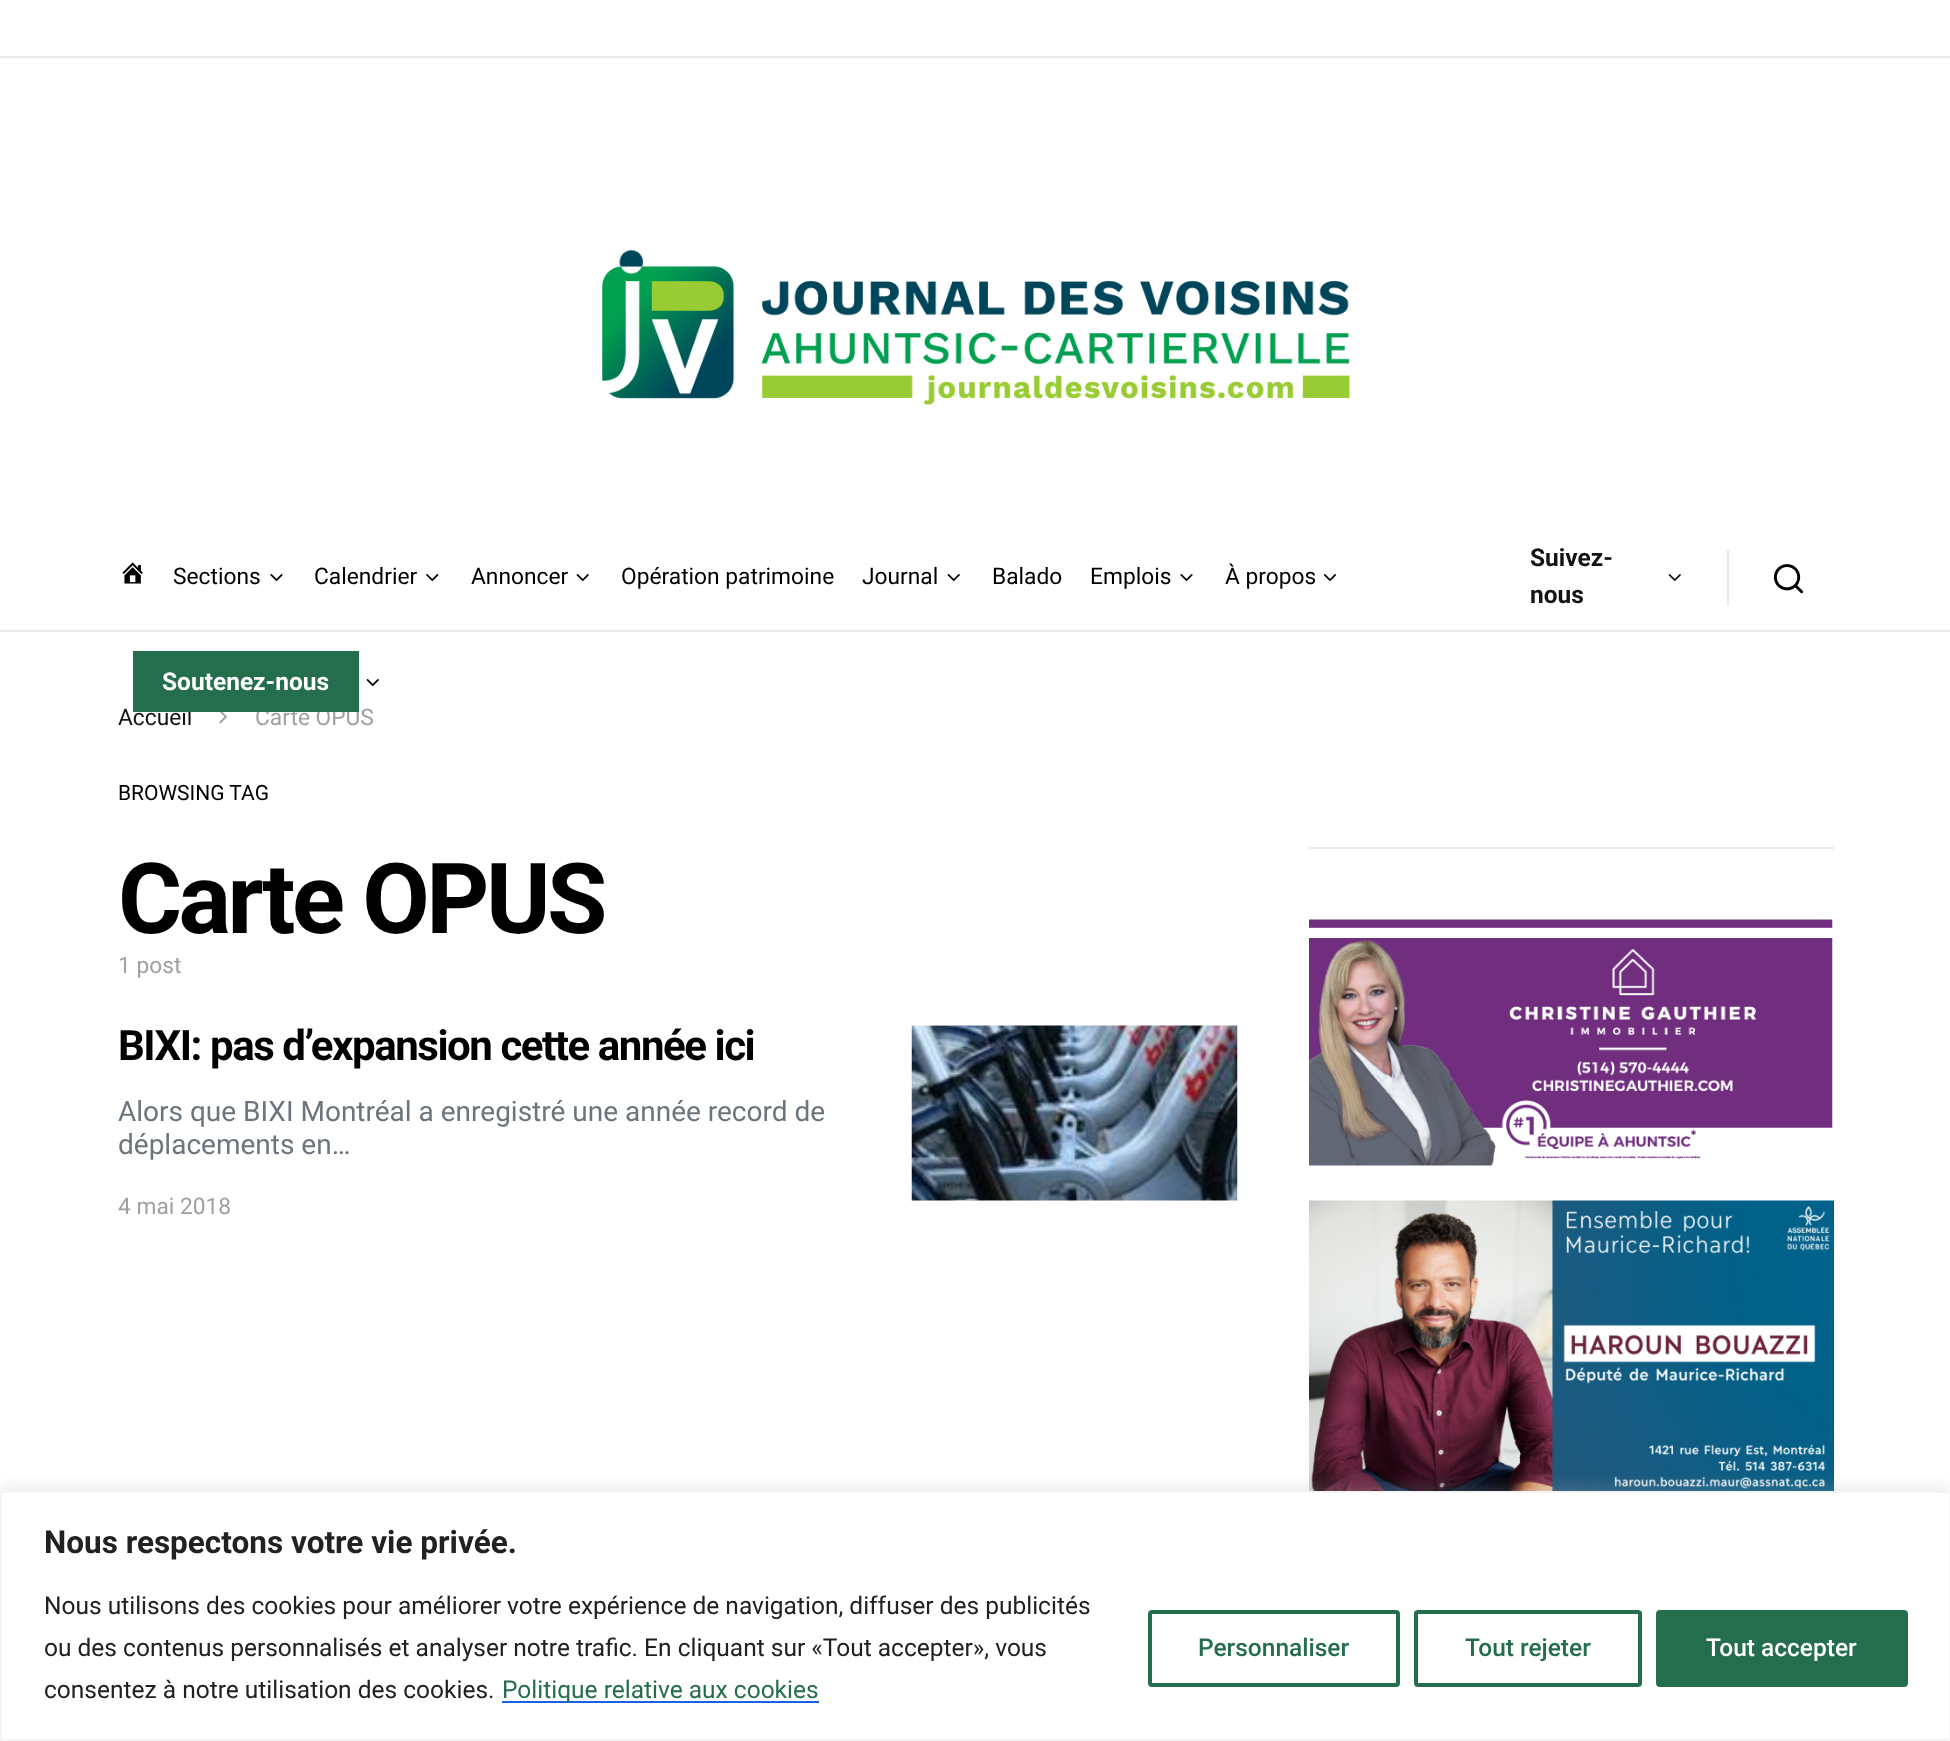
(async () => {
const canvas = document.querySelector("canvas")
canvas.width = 1950
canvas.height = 1741
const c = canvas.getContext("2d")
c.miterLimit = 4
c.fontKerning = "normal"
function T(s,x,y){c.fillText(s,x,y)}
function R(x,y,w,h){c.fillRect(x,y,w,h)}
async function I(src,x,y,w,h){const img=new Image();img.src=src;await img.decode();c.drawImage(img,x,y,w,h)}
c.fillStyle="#fff"
R(0,0,1950,1741)
c.fillStyle="#e9ecef"
R(0,56,1950,2)
await I("1.png",602,249,749,156)
R(0,630,1950,2)
await I("2.png",122,562,21,22)
c.font="22.75px Roboto"
c.fillStyle="#000"
T("Sections",173,584)
await I("3.png",270,574,13,7)
T("Calendrier",314,584)
await I("4.png",426,574,13,7)
T("Annoncer",471,584)
await I("5.png",576,574,13,7)
T("Opération patrimoine",621,584)
T("Journal",862,584)
await I("5.png",947,574,13,7)
T("Balado",992,584)
T("Emplois",1090,584)
await I("3.png",1180,574,13,7)
T("À propos",1225,584)
await I("6.png",1323,574,14,7)
c.fillStyle="#121416"
T("Accueil",118,725)
c.fillStyle="#a0a0a0"
T("Carte OPUS",255,725)
c.fillStyle="#256e4d"
R(133,651,226,61)
c.font="bold 24.5px Roboto"
c.fillStyle="#fff"
T("Soutenez-nous",162,690)
await I("5.png",366,679,13,7)
c.fillStyle="#121416"
T("Suivez-",1530,566)
await I("7.png",1668,574,13,7)
T("nous",1530,603)
c.fillStyle="#e9ecef"
R(1727,550,2,56)
await I("8.png",1773,564,31,30)
await I("9.png",219,712,8,12)
c.font="21px Roboto"
c.fillStyle="#000"
T("BROWSING TAG",118,800)
c.letterSpacing="-3.5px"
c.font="bold 98px Roboto"
T("Carte OPUS",118,933)
c.letterSpacing="0px"
c.font="22.75px Roboto"
c.fillStyle="#a0a0a0"
T("1 post",118,973)
c.letterSpacing="-1.45px"
c.font="bold 42px Roboto"
c.fillStyle="#000"
T("BIXI: pas d’expansion cette année ici",118,1060)
c.letterSpacing="0px"
c.font="28px Roboto"
c.fillStyle="#6c757d"
T("Alors que BIXI Montréal a enregistré une année record de",118,1121)
T("déplacements en…",118,1154)
c.font="22.75px Roboto"
c.fillStyle="#a0a0a0"
T("4 mai 2018",118,1214)
await I("10.png",911,1025,327,176)
c.fillStyle="#e9ecef"
R(1309,847,525,2)
await I("11.png",1309,919,524,247)
await I("12.png",1309,1200,525,291)
c.fillStyle="#acabab4d"
c.filter="blur(9px)"
c.beginPath()
c.rect(0,1489,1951,251)
c.fill()
c.filter="none"
c.fillStyle="#fff"
c.beginPath()
c.rect(1,1492,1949,248)
c.fill()
c.strokeStyle="#f4f4f4"
c.lineWidth=2
c.stroke()
c.font="bold 31.5px Roboto"
c.fillStyle="#212121"
T("Nous respectons votre vie privée.",44,1553)
c.font="24.5px Roboto"
T("Nous utilisons des cookies pour améliorer votre expérience de navigation, diffuser des publicités",44,1614)
T("ou des contenus personnalisés et analyser notre trafic. En cliquant sur «Tout accepter», vous",44,1656)
T("consentez à notre utilisation des cookies.",44,1698)
c.fillStyle="#1863dc"
R(502,1701,317,2)
c.fillStyle="#256e4d"
T("Politique relative aux cookies",502,1698)
c.beginPath()
c.roundRect(1150,1612,248,73,2)
c.strokeStyle="#256e4d"
c.lineWidth=4
c.stroke()
c.font="500 24.5px Roboto"
T("Personnaliser",1198,1656)
c.beginPath()
c.roundRect(1416,1612,224,73,2)
c.stroke()
T("Tout rejeter",1465,1656)
c.beginPath()
c.roundRect(1658,1612,248,73,2)
c.fill()
c.stroke()
c.fillStyle="#fff"
T("Tout accepter",1706,1656)
})()
